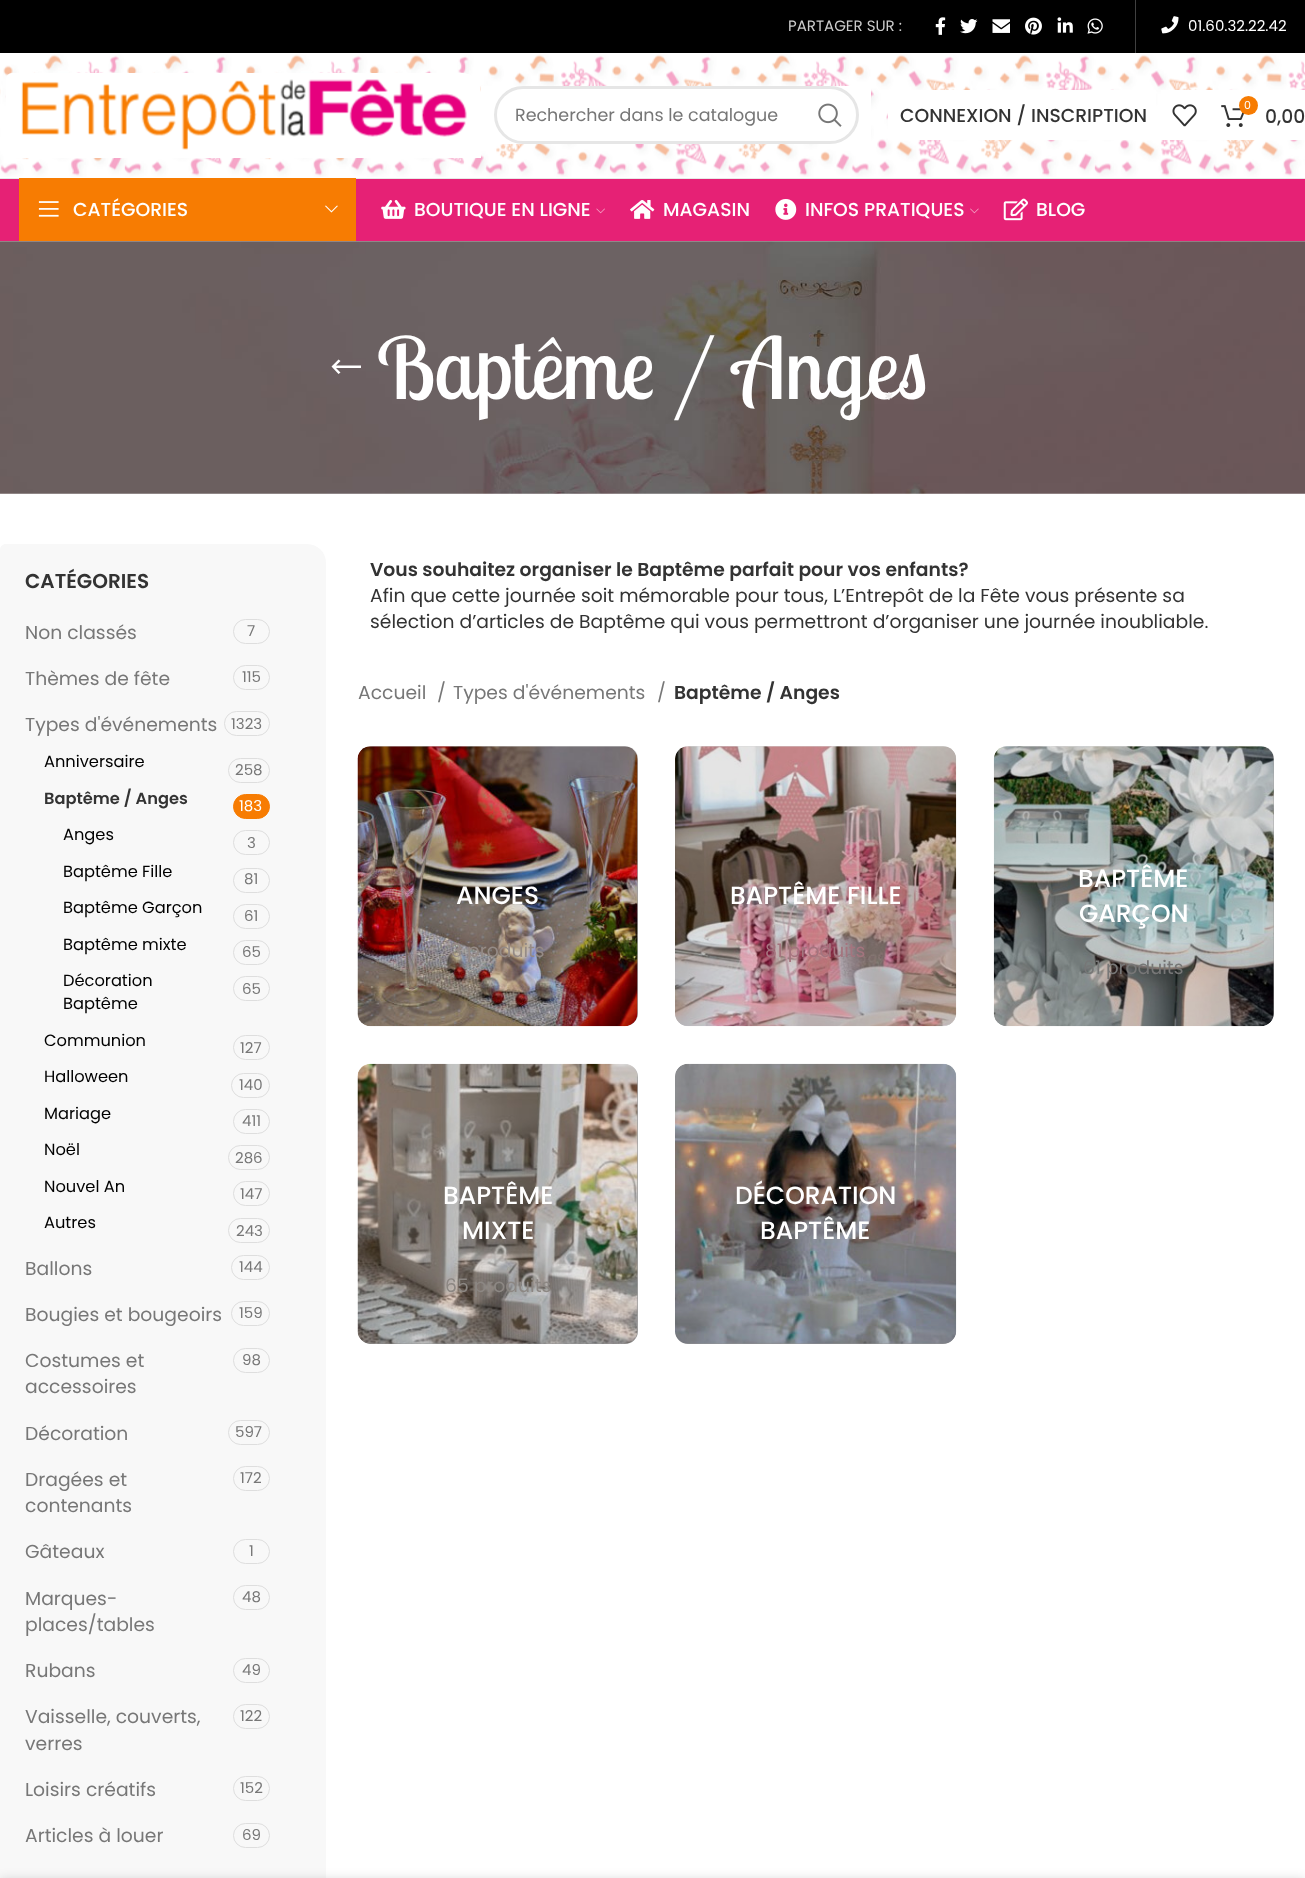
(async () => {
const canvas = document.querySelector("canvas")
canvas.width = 1305
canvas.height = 1878
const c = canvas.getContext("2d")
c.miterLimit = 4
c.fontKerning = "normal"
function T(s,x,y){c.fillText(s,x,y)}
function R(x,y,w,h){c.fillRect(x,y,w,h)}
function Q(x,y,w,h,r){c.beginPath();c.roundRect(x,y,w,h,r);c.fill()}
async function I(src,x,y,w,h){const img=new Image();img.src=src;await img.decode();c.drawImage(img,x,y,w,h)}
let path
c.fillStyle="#fff"
R(0,0,1305,1878)
c.fillStyle="#000"
R(0,0,1305,53)
c.font="15px Poppins"
c.fillStyle="#ccc"
T("PARTAGER SUR :",788,31)
await I("1.png",935,17,11,18)
await I("2.png",960,19,18,15)
await I("3.png",992,19,18,14)
await I("4.png",1025,17,17,18)
await I("5.png",1057,17,16,16)
await I("6.png",1087,18,16,16)
c.fillStyle="#404040"
R(1135,0,1,53)
await I("7.png",1161,16,18,18)
c.fillStyle="#fff"
T("01.60.32.22.42",1188,31)
await I("8.png",0,54,1305,123)
c.fillStyle="#e8e8e8"
R(0,178,1305,1)
c.fillStyle="#fff"
c.beginPath()
c.roundRect(6,73,475,85,[6,19,0,0])
c.fill()
await I("9.png",21,79,446,71)
R(1161,90,144,50)
await I("10.png",1172,104,25,23)
R(481,86,390,58)
c.beginPath()
c.roundRect(495.5,87.5,362,55,27.5)
c.strokeStyle="#e6e6e6"
c.lineWidth=3
c.stroke()
c.font="17.5px Poppins"
c.fillStyle="#777"
T("Rechercher dans le catalogue",515,121)
await I("11.png",818,103,24,24)
c.fillStyle="#fff"
R(888,90,268,50)
c.font="500 18.75px Poppins"
c.fillStyle="#333"
T("CONNEXION / INSCRIPTION",900,122)
await I("21.png",0,241,1305,253)
c.font="85px Lobster Two"
c.fillStyle="#fff"
T("Baptême / Anges",377,399)
c.font="20px Poppins"
c.fillStyle="#ebe9e9"
T("*",884,407)
await I("12.png",1221,105,24,22)
c.fillStyle="#f77c02"
c.beginPath()
c.arc(1248.5,105.5,9.5,0,7)
c.fill()
c.font="11px Poppins"
c.fillStyle="#fff"
T("0",1244,109)
c.font="500 18.75px Poppins"
c.fillStyle="#333"
T("0,00",1265,123)
c.fillStyle="#e62175"
R(0,179,1305,62)
c.fillStyle="#f77c02"
R(19,178,337,63)
await I("13.png",38,201,21,16)
c.fillStyle="#fff"
T("CATÉGORIES",73,216)
await I("14.png",325,205,13,8)
await I("15.png",381,200,25,19)
T("BOUTIQUE EN LIGNE",414,216)
await I("16.png",596,208,9,6)
await I("17.png",630,200,25,19)
T("MAGASIN",663,216)
await I("18.png",775,199,22,21)
T("INFOS PRATIQUES",805,216)
await I("19.png",970,208,9,6)
await I("20.png",1003,198,25,23)
T("BLOG",1036,216)
path = new Path2D("M340.5 372.5l-4.5-4.5h25v-2.5h-25l4.5-4.5l-2-1.5l-7 7l7 7.5z")
c.fill(path)
c.fillStyle="#f8f8f8"
path = new Path2D("M6 544h301c10.5 0 19 8.5 19 19v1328c0 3.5-2.5 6-6 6h-301c-10.5 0-19-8.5-19-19v-1328c0-3.5 2.5-6 6-6z")
c.fill(path)
c.font="600 20px Poppins"
c.fillStyle="#333"
T("CATÉGORIES",25,588)
c.font="18.75px Poppins"
c.fillStyle="#777"
T("Non classés",25,639)
c.beginPath()
c.roundRect(233.5,619.5,36,24,12)
c.strokeStyle="#dedede"
c.lineWidth=1
c.stroke()
c.font="15px Poppins"
T("7",247,636)
c.font="18.75px Poppins"
T("Thèmes de fête",25,685)
c.beginPath()
c.roundRect(233.5,665.5,36,24,12)
c.stroke()
c.font="15px Poppins"
T("115",242,682)
c.font="18.75px Poppins"
T("Types d'événements",25,731)
c.beginPath()
c.roundRect(224.5,711.5,45,24,12)
c.stroke()
c.font="15px Poppins"
T("1323",231,729)
c.font="16.25px Poppins"
c.fillStyle="#000"
T("Anniversaire",44,767)
c.beginPath()
c.roundRect(228.5,758.5,41,24,12)
c.stroke()
c.font="15px Poppins"
c.fillStyle="#777"
T("258",235,775)
c.font="600 16.25px Poppins"
c.fillStyle="#333"
T("Baptême / Anges",44,804)
c.fillStyle="#f77c02"
c.beginPath()
c.roundRect(233.5,794.5,36,24,12)
c.fill()
c.strokeStyle="#f77c02"
c.stroke()
c.font="15px Poppins"
c.fillStyle="#fff"
T("183",239,811)
c.font="16.25px Poppins"
c.fillStyle="#000"
T("Anges",63,840)
c.beginPath()
c.roundRect(233.5,830.5,36,24,12)
c.strokeStyle="#dedede"
c.stroke()
c.font="15px Poppins"
c.fillStyle="#777"
T("3",247,848)
c.font="16.25px Poppins"
c.fillStyle="#000"
T("Baptême Fille",63,877)
c.beginPath()
c.roundRect(233.5,868.5,36,24,12)
c.stroke()
c.font="15px Poppins"
c.fillStyle="#777"
T("81",244,884)
c.font="16.25px Poppins"
c.fillStyle="#000"
T("Baptême Garçon",63,913)
c.beginPath()
c.roundRect(233.5,904.5,36,24,12)
c.stroke()
c.font="15px Poppins"
c.fillStyle="#777"
T("61",244,921)
c.font="16.25px Poppins"
c.fillStyle="#000"
T("Baptême mixte",63,950)
c.beginPath()
c.roundRect(233.5,940.5,36,24,12)
c.stroke()
c.font="15px Poppins"
c.fillStyle="#777"
T("65",242,957)
c.font="16.25px Poppins"
c.fillStyle="#000"
T("Décoration",63,986)
T("Baptême",63,1009)
c.beginPath()
c.roundRect(233.5,976.5,36,24,12)
c.stroke()
c.font="15px Poppins"
c.fillStyle="#777"
T("65",242,994)
c.font="16.25px Poppins"
c.fillStyle="#000"
T("Communion",44,1046)
c.beginPath()
c.roundRect(233.5,1035.5,36,24,12)
c.stroke()
c.font="15px Poppins"
c.fillStyle="#777"
T("127",240,1053)
c.font="16.25px Poppins"
c.fillStyle="#000"
T("Halloween",44,1082)
c.beginPath()
c.roundRect(231.5,1073.5,38,24,12)
c.stroke()
c.font="15px Poppins"
c.fillStyle="#777"
T("140",239,1090)
c.font="16.25px Poppins"
c.fillStyle="#000"
T("Mariage",44,1119)
c.beginPath()
c.roundRect(233.5,1109.5,36,24,12)
c.stroke()
c.font="15px Poppins"
c.fillStyle="#777"
T("411",242,1126)
c.font="16.25px Poppins"
c.fillStyle="#000"
T("Noël",44,1155)
c.beginPath()
c.roundRect(228.5,1145.5,41,24,12)
c.stroke()
c.font="15px Poppins"
c.fillStyle="#777"
T("286",235,1163)
c.font="16.25px Poppins"
c.fillStyle="#000"
T("Nouvel An",44,1192)
c.beginPath()
c.roundRect(233.5,1181.5,36,24,12)
c.stroke()
c.font="15px Poppins"
c.fillStyle="#777"
T("147",240,1199)
c.font="16.25px Poppins"
c.fillStyle="#000"
T("Autres",44,1228)
c.beginPath()
c.roundRect(228.5,1218.5,41,24,12)
c.stroke()
c.font="15px Poppins"
c.fillStyle="#777"
T("243",236,1236)
c.font="18.75px Poppins"
T("Ballons",25,1275)
c.beginPath()
c.roundRect(231.5,1255.5,38,24,12)
c.stroke()
c.font="15px Poppins"
T("144",239,1272)
c.font="18.75px Poppins"
T("Bougies et bougeoirs",25,1321)
c.beginPath()
c.roundRect(231.5,1301.5,38,24,12)
c.stroke()
c.font="15px Poppins"
T("159",239,1318)
c.font="18.75px Poppins"
T("Costumes et",25,1367)
T("accessoires",25,1393)
c.beginPath()
c.roundRect(233.5,1348.5,36,24,12)
c.stroke()
c.font="15px Poppins"
T("98",242,1365)
c.font="18.75px Poppins"
T("Décoration",25,1440)
c.beginPath()
c.roundRect(228.5,1420.5,41,24,12)
c.stroke()
c.font="15px Poppins"
T("597",235,1437)
c.font="18.75px Poppins"
T("Dragées et",25,1486)
T("contenants",25,1512)
c.beginPath()
c.roundRect(233.5,1466.5,36,24,12)
c.stroke()
c.font="15px Poppins"
T("172",240,1483)
c.font="18.75px Poppins"
T("Gâteaux",25,1558)
c.beginPath()
c.roundRect(233.5,1539.5,36,24,12)
c.stroke()
c.font="15px Poppins"
T("1",249,1556)
c.font="18.75px Poppins"
T("Marques-",25,1605)
T("places/tables",25,1631)
c.beginPath()
c.roundRect(233.5,1585.5,36,24,12)
c.stroke()
c.font="15px Poppins"
T("48",242,1602)
c.font="18.75px Poppins"
T("Rubans",25,1677)
c.beginPath()
c.roundRect(233.5,1658.5,36,24,12)
c.stroke()
c.font="15px Poppins"
T("49",242,1675)
c.font="18.75px Poppins"
T("Vaisselle, couverts,",25,1723)
T("verres",25,1750)
c.beginPath()
c.roundRect(233.5,1704.5,36,24,12)
c.stroke()
c.font="15px Poppins"
T("122",240,1721)
c.font="18.75px Poppins"
T("Loisirs créatifs",25,1796)
c.beginPath()
c.roundRect(233.5,1776.5,36,24,12)
c.stroke()
c.font="15px Poppins"
T("152",240,1793)
c.font="18.75px Poppins"
T("Articles à louer",25,1842)
c.beginPath()
c.roundRect(233.5,1823.5,36,24,12)
c.stroke()
c.font="15px Poppins"
T("69",242,1840)
c.font="600 18.75px Poppins"
c.fillStyle="#333"
T("Vous souhaitez organiser le Baptême parfait pour vos enfants?",370,576)
c.font="18.75px Poppins"
T("Afin que cette journée soit mémorable pour tous, L’Entrepôt de la Fête vous présente sa",370,602)
T("sélection d’articles de Baptême qui vous permettront d’organiser une journée inoubliable.",370,628)
c.fillStyle="#777"
T("Accueil",358,699)
T("/",437,699)
T("Types d'événements",453,699)
T("/",657,699)
c.font="600 18.75px Poppins"
c.fillStyle="#333"
T("Baptême / Anges",674,699)
c.save()
c.beginPath()
c.roundRect(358,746,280,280,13)
c.clip()
c.fillStyle="#00000066"
c.filter="blur(2px)"
c.beginPath()
c.roundRect(359,749,280,280,13)
c.fill()
c.filter="none"
c.restore()
await I("22.png",357,746,281,281)
c.fillStyle="#0000001a"
Q(358,746,280,280,13)
c.font="500 25px Poppins"
c.fillStyle="#fff"
T("ANGES",456,904)
c.font="18.75px Poppins"
c.fillStyle="#958b86"
T("3 produits",451,957)
c.save()
c.beginPath()
c.roundRect(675,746,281,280,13)
c.clip()
c.fillStyle="#00000066"
c.filter="blur(2px)"
c.beginPath()
c.roundRect(676,749,282,280,13)
c.fill()
c.filter="none"
c.restore()
await I("23.png",675,746,282,281)
c.fillStyle="#0000001a"
Q(675,746,281,280,13)
c.font="500 25px Poppins"
c.fillStyle="#fff"
T("BAPTÊME FILLE",730,904)
c.font="18.75px Poppins"
c.fillStyle="#a4747e"
T("81 produits",765,957)
c.save()
c.beginPath()
c.roundRect(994,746,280,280,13)
c.clip()
c.fillStyle="#00000066"
c.filter="blur(2px)"
c.beginPath()
c.roundRect(995,749,280,280,13)
c.fill()
c.filter="none"
c.restore()
await I("24.png",993,746,281,281)
c.fillStyle="#0000001a"
Q(994,746,280,280,13)
c.font="500 25px Poppins"
c.fillStyle="#fff"
T("BAPTÊME",1078,887)
T("GARÇON",1079,922)
c.font="18.75px Poppins"
c.fillStyle="#777"
T("61 produits",1083,974)
c.save()
c.beginPath()
c.roundRect(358,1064,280,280,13)
c.clip()
c.fillStyle="#00000066"
c.filter="blur(2px)"
c.beginPath()
c.roundRect(359,1066,280,280,13)
c.fill()
c.filter="none"
c.restore()
await I("25.png",357,1063,281,281)
c.fillStyle="#0000001a"
Q(358,1064,280,280,13)
c.font="500 25px Poppins"
c.fillStyle="#fff"
T("BAPTÊME",443,1204)
T("MIXTE",462,1239)
c.font="18.75px Poppins"
c.fillStyle="#8c8783"
T("65 produits",445,1292)
c.save()
c.beginPath()
c.roundRect(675,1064,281,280,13)
c.clip()
c.fillStyle="#00000066"
c.filter="blur(2px)"
c.beginPath()
c.roundRect(676,1066,282,280,13)
c.fill()
c.filter="none"
c.restore()
await I("26.png",675,1063,282,281)
c.fillStyle="#0000001a"
Q(675,1064,281,280,13)
c.font="500 25px Poppins"
c.fillStyle="#fff"
T("DÉCORATION",735,1204)
T("BAPTÊME",760,1239)
c.fillStyle="#00000024"
c.filter="blur(5.5px)"
c.beginPath()
c.rect(0,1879,1305,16)
c.fill()
c.filter="none"
})()
